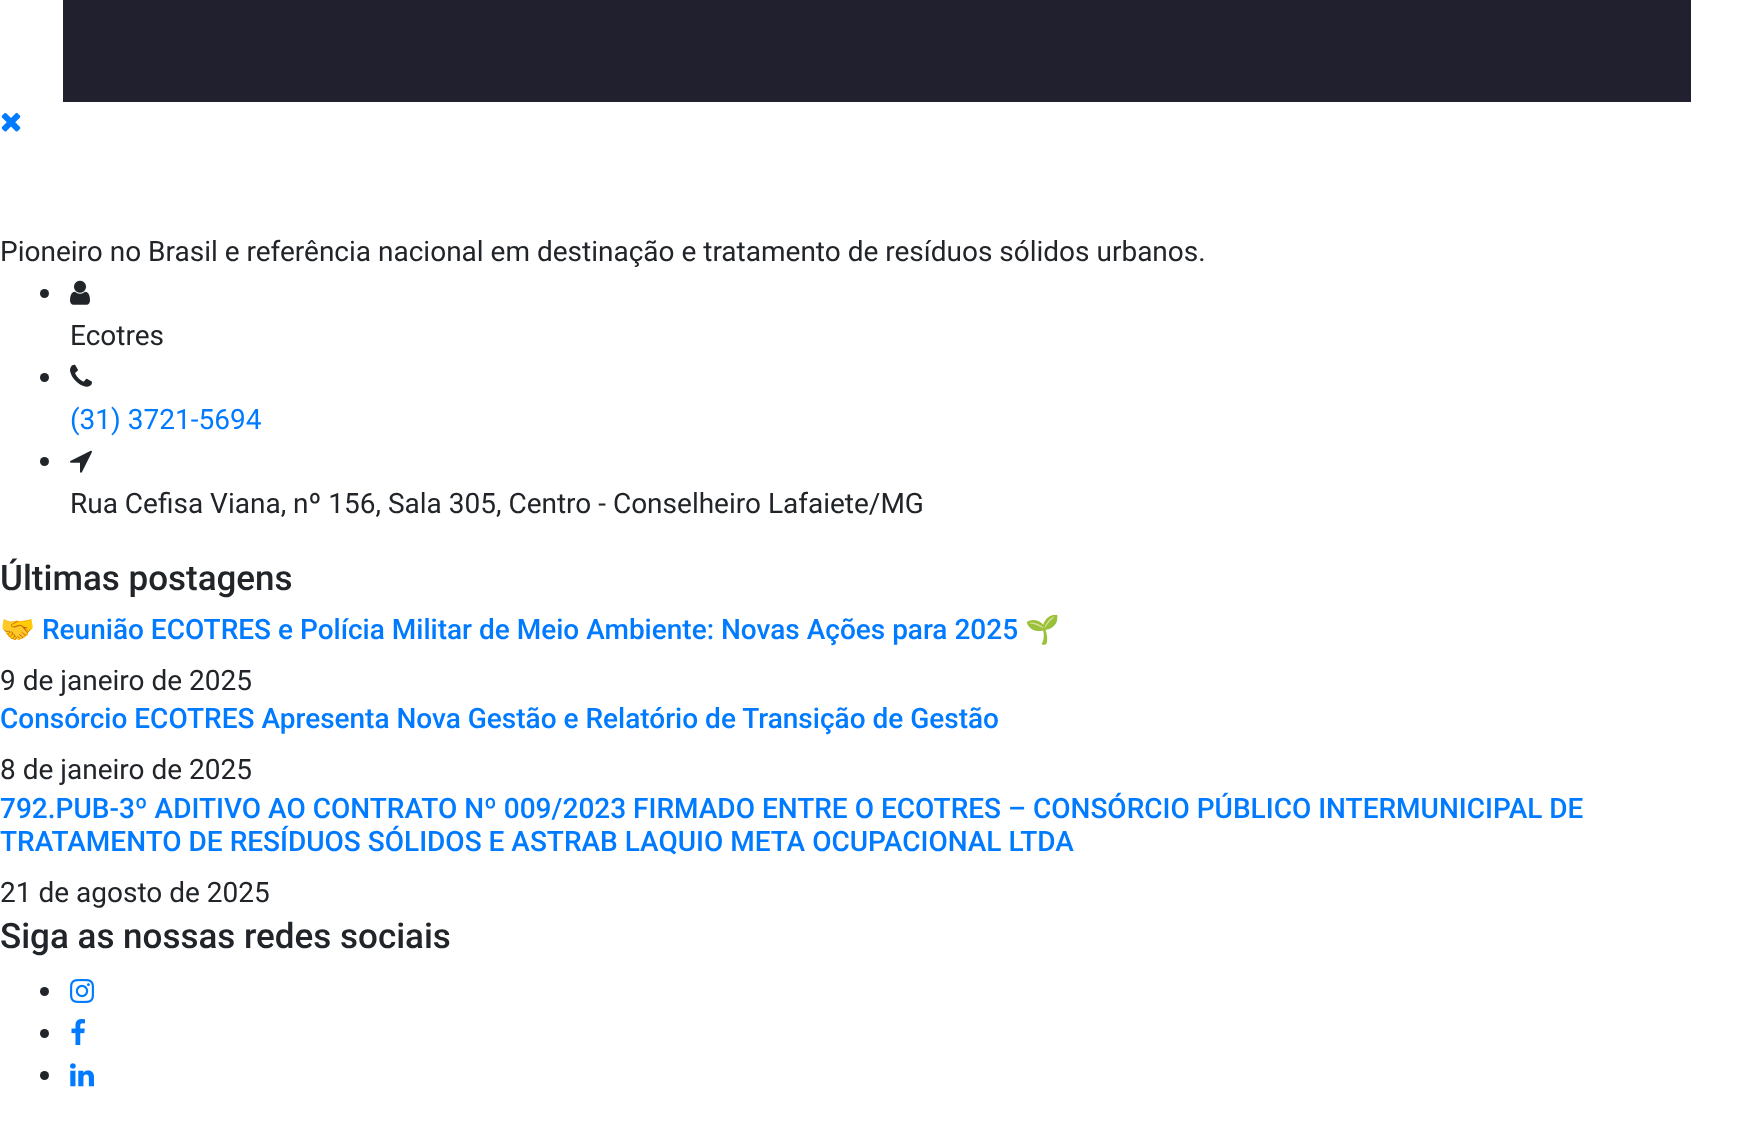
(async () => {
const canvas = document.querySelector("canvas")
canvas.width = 1753
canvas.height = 1125
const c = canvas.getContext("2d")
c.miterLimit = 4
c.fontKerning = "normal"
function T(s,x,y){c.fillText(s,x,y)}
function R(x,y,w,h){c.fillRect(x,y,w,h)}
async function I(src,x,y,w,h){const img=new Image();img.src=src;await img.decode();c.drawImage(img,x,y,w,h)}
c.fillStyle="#fff"
R(0,0,1753,1125)
c.fillStyle="#21202e"
R(63,0,1628,102)
await I("1.png",1,113,20,19)
c.font="28px Roboto"
c.fillStyle="#212529"
T("Pioneiro no Brasil e referência nacional em destinação e tratamento de resíduos sólidos urbanos.",0,261)
c.beginPath()
c.arc(44.5,293.5,4.5,0,7)
c.fill()
await I("2.png",70,280,20,25)
T("Ecotres",70,345)
c.beginPath()
c.arc(44.5,377.5,4.5,0,7)
c.fill()
await I("3.png",70,364,22,23)
c.fillStyle="#007bff"
T("(31) 3721-5694",70,429)
c.fillStyle="#212529"
c.beginPath()
c.arc(44.5,461.5,4.5,0,7)
c.fill()
await I("4.png",70,450,22,23)
T("Rua Cefisa Viana, nº 156, Sala 305, Centro - Conselheiro Lafaiete/MG",70,513)
c.font="500 35px Roboto"
T("Últimas postagens",0,590)
c.font="28px Noto Color Emoji"
c.fillStyle="#007bff"
T("🤝",0,639)
c.font="500 28px Roboto"
T("Reunião ECOTRES e Polícia Militar de Meio Ambiente: Novas Ações para 2025",42,639)
c.font="28px Noto Color Emoji"
T("🌱",1025,639)
c.font="28px Roboto"
c.fillStyle="#212529"
T("9 de janeiro de 2025",0,690)
c.font="500 28px Roboto"
c.fillStyle="#007bff"
T("Consórcio ECOTRES Apresenta Nova Gestão e Relatório de Transição de Gestão",0,728)
c.font="28px Roboto"
c.fillStyle="#212529"
T("8 de janeiro de 2025",0,779)
c.font="500 28px Roboto"
c.fillStyle="#007bff"
T("792.PUB-3º ADITIVO AO CONTRATO Nº 009/2023 FIRMADO ENTRE O ECOTRES – CONSÓRCIO PÚBLICO INTERMUNICIPAL DE",0,818)
T("TRATAMENTO DE RESÍDUOS SÓLIDOS E ASTRAB LAQUIO META OCUPACIONAL LTDA",0,851)
c.font="28px Roboto"
c.fillStyle="#212529"
T("21 de agosto de 2025",0,902)
c.font="500 35px Roboto"
T("Siga as nossas redes sociais",0,948)
c.beginPath()
c.arc(44.5,991.5,4.5,0,7)
c.fill()
await I("5.png",70,979,24,24)
c.beginPath()
c.arc(44.5,1033.5,4.5,0,7)
c.fill()
await I("6.png",71,1019,14,26)
c.beginPath()
c.arc(44.5,1075.5,4.5,0,7)
c.fill()
await I("7.png",70,1063,24,24)
})()
